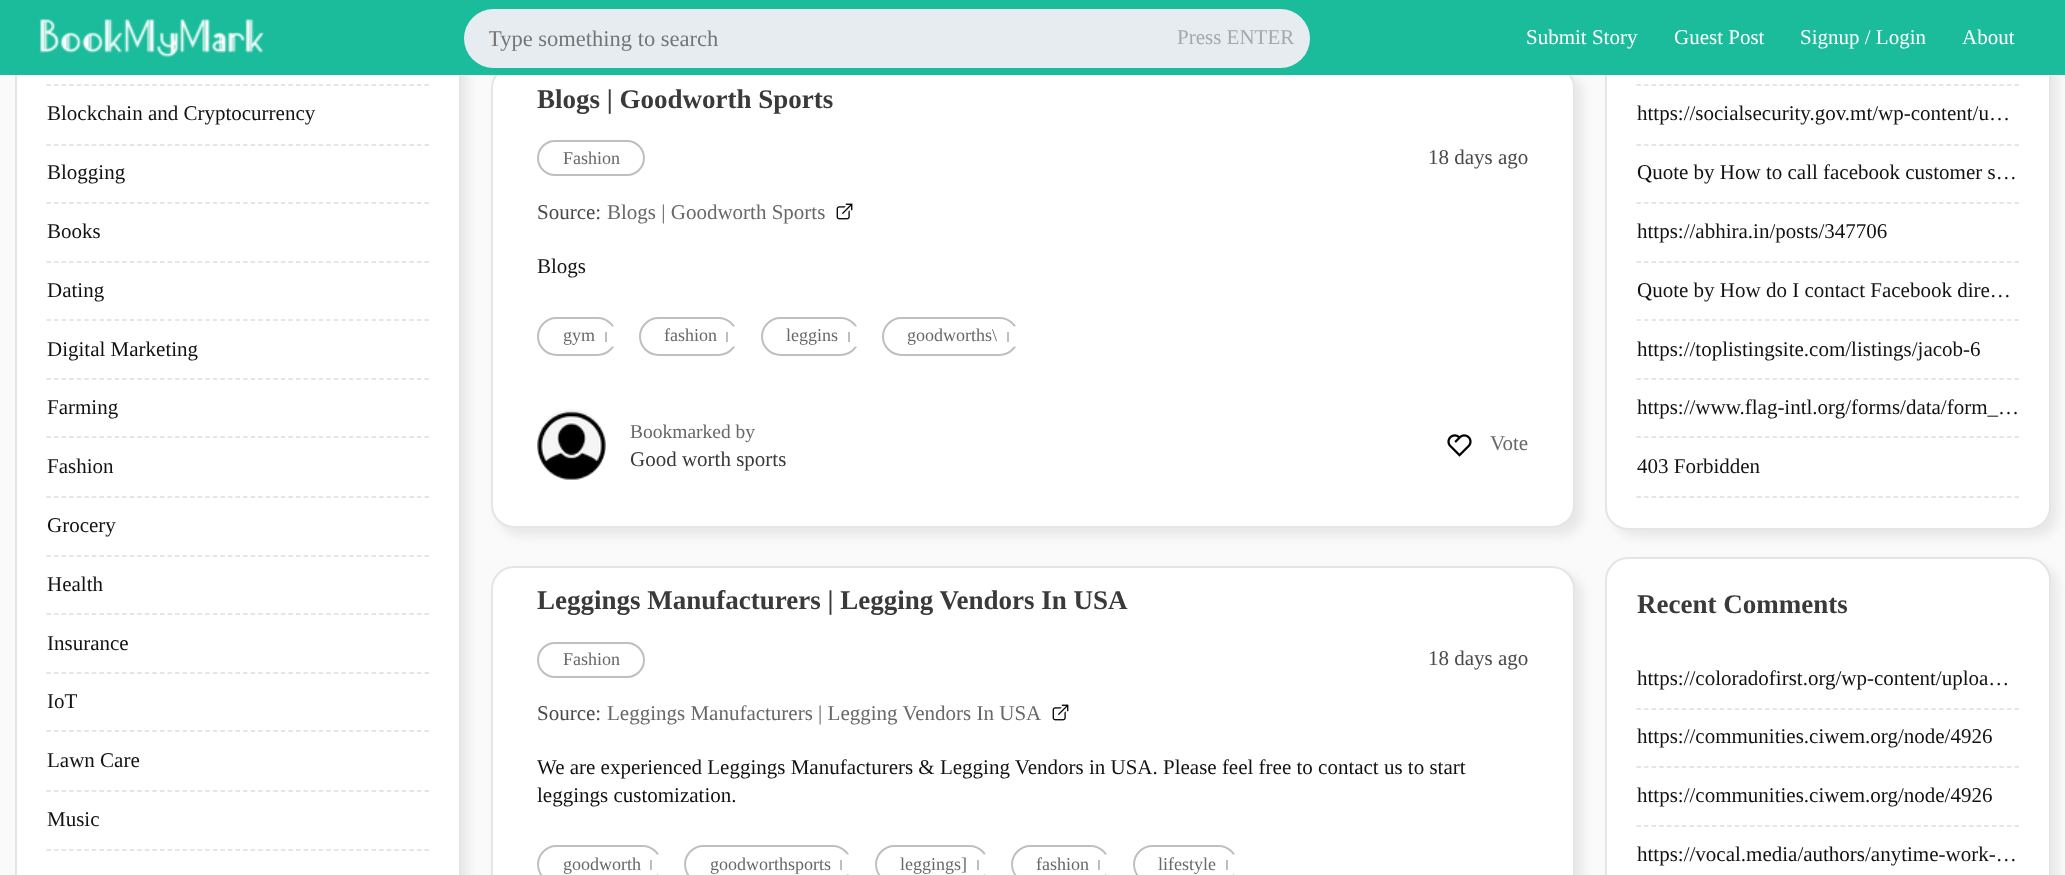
(async () => {
const canvas = document.querySelector("canvas")
canvas.width = 2065
canvas.height = 875
const c = canvas.getContext("2d")
c.miterLimit = 4
c.fontKerning = "normal"
function T(s,x,y){c.fillText(s,x,y)}
function R(x,y,w,h){c.fillRect(x,y,w,h)}
function Q(x,y,w,h,r){c.beginPath();c.roundRect(x,y,w,h,r);c.fill()}
async function I(src,x,y,w,h){const img=new Image();img.src=src;await img.decode();c.drawImage(img,x,y,w,h)}
let path
c.fillStyle="#fafafa"
R(0,0,2065,875)
c.fillStyle="#e9e8e8"
c.filter="blur(5px)"
c.beginPath()
c.roundRect(23,-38,445,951,23)
c.fill()
c.filter="none"
c.fillStyle="#fff"
R(17,75,442,800)
c.strokeStyle="#e5e5e5"
c.lineWidth=2
c.strokeRect(16,-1,444,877)
c.fillStyle="#e9e8e8"
c.filter="blur(5px)"
c.beginPath()
c.roundRect(498,72,1085,464,23)
c.fill()
c.filter="none"
c.fillStyle="#fff"
c.beginPath()
c.roundRect(492,66,1082,461,22)
c.fill()
c.stroke()
c.fillStyle="#e9e8e8"
c.filter="blur(5px)"
c.beginPath()
c.roundRect(1613,-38,445,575,23)
c.fill()
c.filter="none"
c.fillStyle="#fff"
c.beginPath()
c.roundRect(1606,-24,444,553,22)
c.fill()
c.stroke()
c.fillStyle="#1bbc9b"
R(0,0,2065,75)
await I("1.png",39,19,226,39)
c.fillStyle="#e6ecf0"
Q(464,9,846,59,29.5)
c.save()
c.beginPath()
c.rect(489,27,795,26)
c.clip()
c.font="22.5px Liberation Serif"
c.fillStyle="#757575"
T("Type something to search",488,46)
c.restore()
c.font="21px Liberation Serif"
c.fillStyle="#a5a9a8"
T("Press ENTER",1177,44)
c.fillStyle="#fff"
T("Submit Story",1526,44)
T("Guest Post",1674,44)
T("Signup / Login",1800,44)
T("About",1962,44)
path = new Path2D("M46.5 85h382.5")
c.strokeStyle="#ddd"
c.lineWidth=1.5
c.setLineDash([4.5,3.06])
c.stroke(path)
path = new Path2D("M46.5 145h382.5")
c.stroke(path)
c.fillStyle="#121212"
T("Blockchain and Cryptocurrency",47,120)
path = new Path2D("M46.5 203h382.5")
c.stroke(path)
T("Blogging",47,179)
path = new Path2D("M46.5 262h382.5")
c.stroke(path)
T("Books",47,238)
path = new Path2D("M46.5 320h382.5")
c.stroke(path)
T("Dating",47,297)
path = new Path2D("M46.5 379h382.5")
c.stroke(path)
T("Digital Marketing",47,356)
path = new Path2D("M46.5 437h382.5")
c.stroke(path)
T("Farming",47,414)
path = new Path2D("M46.5 497h382.5")
c.stroke(path)
T("Fashion",47,473)
path = new Path2D("M46.5 556h382.5")
c.stroke(path)
T("Grocery",47,532)
path = new Path2D("M46.5 614h382.5")
c.stroke(path)
T("Health",47,591)
path = new Path2D("M46.5 673h382.5")
c.stroke(path)
T("Insurance",47,650)
path = new Path2D("M46.5 731h382.5")
c.stroke(path)
T("IoT",47,708)
path = new Path2D("M46.5 791h382.5")
c.stroke(path)
T("Lawn Care",47,767)
path = new Path2D("M46.5 850h382.5")
c.stroke(path)
T("Music",47,826)
c.font="bold 27px Liberation Serif"
c.fillStyle="#3a3a3a"
T("Blogs | Goodworth Sports",537,108)
c.beginPath()
c.roundRect(538,141,106,34,17)
c.strokeStyle="#bfbfbf"
c.lineWidth=2
c.setLineDash([])
c.stroke()
c.font="18px Liberation Serif"
c.fillStyle="#686868"
T("Fashion",563,164)
c.font="21px Liberation Serif"
c.fillStyle="#494949"
T("18 days ago",1428,164)
T("Source:",537,219)
c.fillStyle="#686868"
T("Blogs | Goodworth Sports",607,219)
await I("2.png",836,203,17,17)
c.fillStyle="#121212"
T("Blogs",537,273)
c.beginPath()
c.roundRect(538,318,78,37,18.5)
c.stroke()
c.font="18px Liberation Serif"
c.fillStyle="#686868"
T("gym",563,341)
c.fillStyle="#fff"
Q(605,326,19,21,9.5)
c.fillStyle="#bfbfbf"
R(605,332,2,10)
c.beginPath()
c.roundRect(640,318,97,37,18.5)
c.stroke()
c.fillStyle="#686868"
T("fashion",664,341)
c.fillStyle="#fff"
Q(726,326,20,21,10)
c.fillStyle="#bfbfbf"
R(726,332,2,10)
c.beginPath()
c.roundRect(762,318,97,37,18.5)
c.stroke()
c.fillStyle="#686868"
T("leggins",786,341)
c.fillStyle="#fff"
Q(848,326,19,21,9.5)
c.fillStyle="#bfbfbf"
R(848,332,2,10)
c.beginPath()
c.roundRect(883,318,135,37,18.5)
c.stroke()
c.fillStyle="#686868"
T("goodworths\\",907,341)
c.fillStyle="#fff"
Q(1007,326,19,21,9.5)
c.fillStyle="#bfbfbf"
R(1007,332,2,10)
await I("3.png",537,409,69,71)
c.font="19.5px Liberation Serif"
c.fillStyle="#686868"
T("Bookmarked by",630,438)
c.font="21px Liberation Serif"
c.fillStyle="#3a3a3a"
T("Good worth sports",630,466)
await I("4.png",1447,434,25,23)
c.fillStyle="#686868"
T("Vote",1490,450)
c.fillStyle="#e9e8e8"
c.filter="blur(5px)"
c.beginPath()
c.roundRect(498,573,1085,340,23)
c.fill()
c.filter="none"
c.fillStyle="#fff"
c.beginPath()
c.roundRect(492,567,1082,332,22)
c.fill()
c.strokeStyle="#e5e5e5"
c.stroke()
c.font="bold 27px Liberation Serif"
c.fillStyle="#3a3a3a"
T("Leggings Manufacturers | Legging Vendors In USA",537,609)
c.beginPath()
c.roundRect(538,643,106,34,17)
c.strokeStyle="#bfbfbf"
c.stroke()
c.font="18px Liberation Serif"
c.fillStyle="#686868"
T("Fashion",563,665)
c.font="21px Liberation Serif"
c.fillStyle="#494949"
T("18 days ago",1428,665)
T("Source:",537,720)
c.fillStyle="#686868"
T("Leggings Manufacturers | Legging Vendors In USA",607,720)
await I("2.png",1052,704,17,17)
c.fillStyle="#121212"
T("We are experienced Leggings Manufacturers & Legging Vendors in USA. Please feel free to contact us to start",537,774)
T("leggings customization.",537,802)
c.beginPath()
c.roundRect(538,846,123,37,18.5)
c.stroke()
c.font="18px Liberation Serif"
c.fillStyle="#686868"
T("goodworth",563,870)
c.fillStyle="#fff"
Q(650,854,19,21,9.5)
c.fillStyle="#bfbfbf"
R(650,860,2,10)
c.beginPath()
c.roundRect(685,846,166,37,18.5)
c.stroke()
c.fillStyle="#686868"
T("goodworthsports",710,870)
c.fillStyle="#fff"
Q(840,854,20,21,10)
c.fillStyle="#bfbfbf"
R(840,860,2,10)
c.beginPath()
c.roundRect(876,846,112,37,18.5)
c.stroke()
c.fillStyle="#686868"
T("leggings]",900,870)
c.fillStyle="#fff"
Q(977,854,19,21,9.5)
c.fillStyle="#bfbfbf"
R(977,860,2,10)
c.beginPath()
c.roundRect(1012,846,97,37,18.5)
c.stroke()
c.fillStyle="#686868"
T("fashion",1036,870)
c.fillStyle="#fff"
Q(1098,854,20,21,10)
c.fillStyle="#bfbfbf"
R(1098,860,2,10)
c.beginPath()
c.roundRect(1134,846,103,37,18.5)
c.stroke()
c.fillStyle="#686868"
T("lifestyle",1158,870)
c.fillStyle="#fff"
Q(1226,854,19,21,9.5)
c.fillStyle="#bfbfbf"
R(1226,860,2,10)
path = new Path2D("M1636.5 85h382.5")
c.strokeStyle="#ddd"
c.lineWidth=1.5
c.setLineDash([4.5,3.06])
c.stroke(path)
path = new Path2D("M1636.5 145h382.5")
c.stroke(path)
c.font="21px Liberation Serif"
c.fillStyle="#121212"
T("https://socialsecurity.gov.mt/wp-content/u…",1637,120)
path = new Path2D("M1636.5 203h382.5")
c.stroke(path)
T("Quote by How to call facebook customer s…",1637,179)
path = new Path2D("M1636.5 262h382.5")
c.stroke(path)
T("https://abhira.in/posts/347706",1637,238)
path = new Path2D("M1636.5 320h382.5")
c.stroke(path)
T("Quote by How do I contact Facebook dire…",1637,297)
path = new Path2D("M1636.5 379h382.5")
c.stroke(path)
T("https://toplistingsite.com/listings/jacob-6",1637,356)
path = new Path2D("M1636.5 437h382.5")
c.stroke(path)
T("https://www.flag-intl.org/forms/data/form_…",1637,414)
path = new Path2D("M1636.5 497h382.5")
c.stroke(path)
T("403 Forbidden",1637,473)
c.fillStyle="#e9e8e8"
c.filter="blur(5px)"
c.beginPath()
c.roundRect(1613,564,445,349,23)
c.fill()
c.filter="none"
c.fillStyle="#fff"
c.beginPath()
c.roundRect(1606,558,444,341,22)
c.fill()
c.strokeStyle="#e5e5e5"
c.lineWidth=2
c.setLineDash([])
c.stroke()
c.font="bold 27px Liberation Serif"
c.fillStyle="#3a3a3a"
T("Recent Comments",1637,613)
path = new Path2D("M1636.5 709h382.5")
c.strokeStyle="#ddd"
c.lineWidth=1.5
c.setLineDash([4.5,3.06])
c.stroke(path)
c.font="21px Liberation Serif"
c.fillStyle="#121212"
T("https://coloradofirst.org/wp-content/uploa…",1637,685)
path = new Path2D("M1636.5 767h382.5")
c.stroke(path)
T("https://communities.ciwem.org/node/4926",1637,743)
path = new Path2D("M1636.5 826h382.5")
c.stroke(path)
T("https://communities.ciwem.org/node/4926",1637,802)
T("https://vocal.media/authors/anytime-work-…",1637,861)
})()
